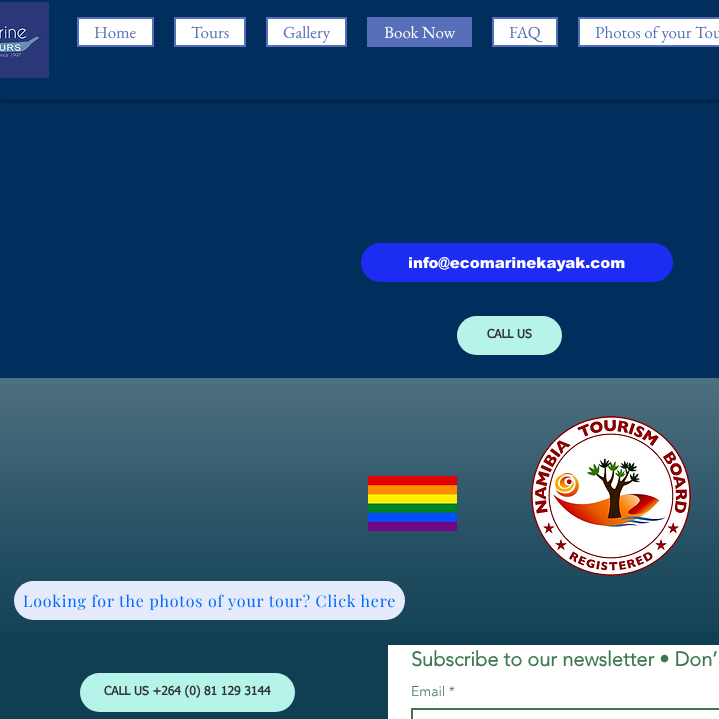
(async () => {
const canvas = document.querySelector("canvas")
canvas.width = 719
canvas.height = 719
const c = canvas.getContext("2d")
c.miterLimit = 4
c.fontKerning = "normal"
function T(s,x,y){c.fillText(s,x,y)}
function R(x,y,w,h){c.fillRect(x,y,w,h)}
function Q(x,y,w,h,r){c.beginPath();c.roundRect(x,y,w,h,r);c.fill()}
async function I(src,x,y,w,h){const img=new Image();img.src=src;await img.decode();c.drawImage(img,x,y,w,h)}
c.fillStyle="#002e5d"
R(0,0,719,719)
c.save()
c.beginPath()
c.rect(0,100,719,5)
c.clip()
c.fillStyle="#000000b3"
c.filter="blur(2.5px)"
c.beginPath()
c.rect(0,0,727,100)
c.fill()
c.filter="none"
c.restore()
await I("1.png",0,2,49,76)
c.fillStyle="#fff"
c.beginPath()
c.rect(78,18,75,28)
c.fill()
c.strokeStyle="#566fb8"
c.lineWidth=2
c.stroke()
c.font="17px EB Garamond"
c.fillStyle="#566fb8"
T("Home",94,38)
c.fillStyle="#fff"
c.beginPath()
c.rect(175,18,70,28)
c.fill()
c.stroke()
c.fillStyle="#566fb8"
T("Tours",191,38)
c.fillStyle="#fff"
c.beginPath()
c.rect(267,18,79,28)
c.fill()
c.stroke()
c.fillStyle="#566fb8"
T("Gallery",283,38)
R(367,17,105,30)
c.fillStyle="#fff"
T("Book Now",384,38)
c.beginPath()
c.rect(493,18,64,28)
c.fill()
c.stroke()
c.fillStyle="#566fb8"
T("FAQ",509,38)
c.fillStyle="#fff"
c.beginPath()
c.rect(579,18,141,28)
c.fill()
c.stroke()
c.fillStyle="#566fb8"
T("Photos of your Tou",595,38)
c.fillStyle="#1d2cf3"
Q(361,243,312,39,19.5)
c.font="900 15px arial"
c.fillStyle="#fff"
T("info@ecomarinekayak.com",408,268)
c.fillStyle="#b6f3e8"
Q(457,316,105,39,19.5)
c.font="bold 12px tahoma"
c.fillStyle="#323232"
T("CALL US",487,338)
c.fillStyle="#103f54"
R(0,378,719,341)
await I("2.png",0,378,719,254)
await I("3.png",368,476,89,55)
await I("4.png",531,416,160,160)
c.fillStyle="#e5ebfa"
Q(14,581,391,39,19.5)
c.letterSpacing="0.8px"
c.font="16px Playfair Display"
c.fillStyle="#0069ff"
T("Looking for the photos of your tour? Click here",23,607)
c.fillStyle="#b6f3e8"
Q(80,673,215,39,19.5)
c.letterSpacing="0px"
c.font="bold 12px tahoma"
c.fillStyle="#323232"
T("CALL US +264 (0) 81 129 3144",104,695)
c.fillStyle="#fff"
R(388,645,331,74)
c.font="bold 20px 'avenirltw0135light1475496'"
c.fillStyle="#3f7652"
T("Subscribe to our newsletter • Don’",411,666)
c.font="300 14px 'avenirltw0135light1475496'"
T("Email *",411,696)
c.strokeStyle="#3f7652"
c.strokeRect(412,709,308,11)
})()
